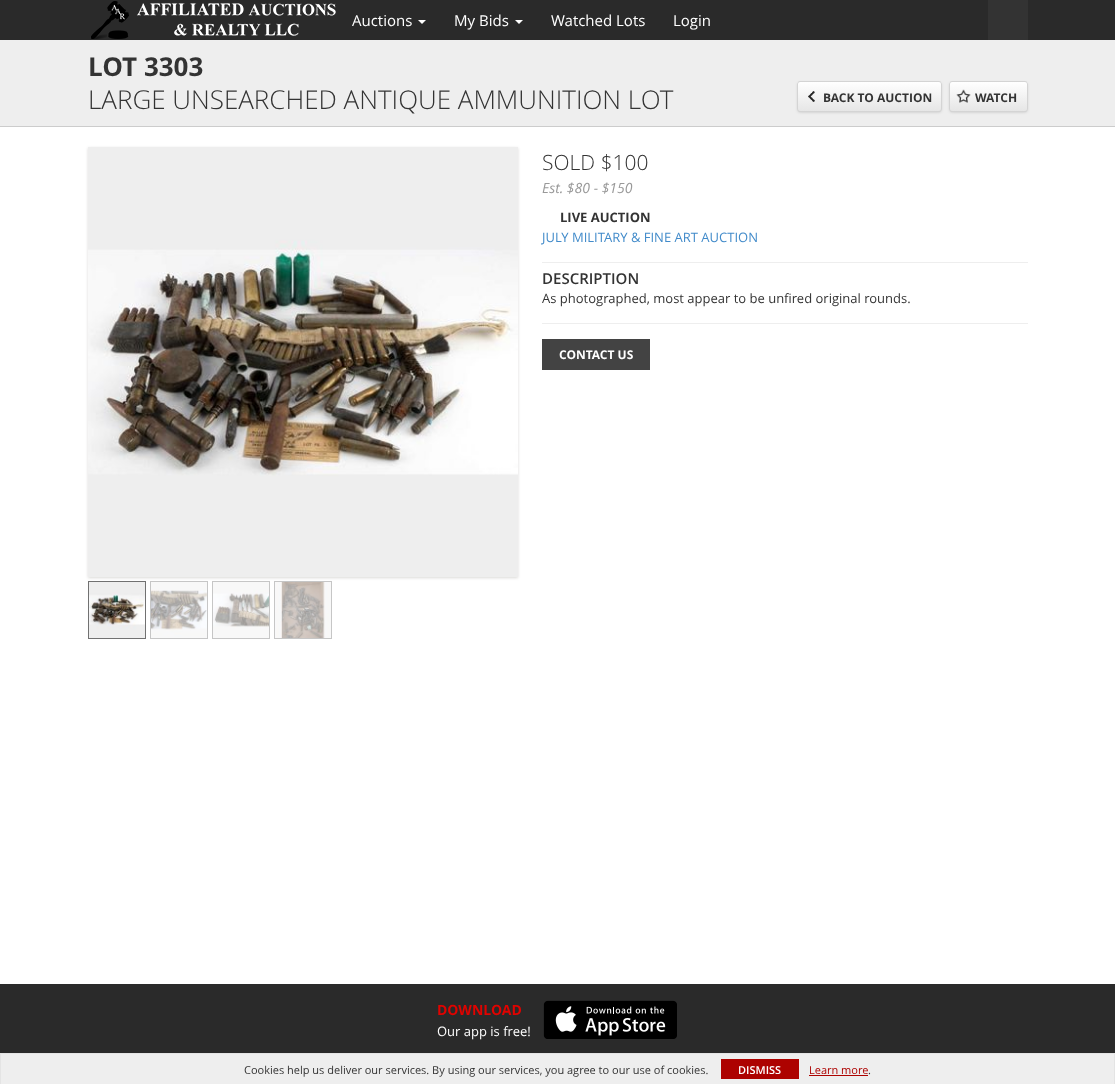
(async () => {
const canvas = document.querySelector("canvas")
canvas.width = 1115
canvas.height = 1084
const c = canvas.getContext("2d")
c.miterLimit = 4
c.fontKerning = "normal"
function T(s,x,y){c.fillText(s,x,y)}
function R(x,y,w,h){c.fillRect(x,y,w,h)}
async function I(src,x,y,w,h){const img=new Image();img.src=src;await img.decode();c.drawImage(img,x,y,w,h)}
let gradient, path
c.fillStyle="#fff"
R(0,0,1115,1084)
c.fillStyle="#2a2a2a"
R(0,0,1115,40)
await I("1.png",91,1,245,38)
c.font="15px Open Sans"
c.fillStyle="#fff"
T("Auctions",352,26)
path = new Path2D("M418 20h8l-4 4z")
c.fill(path)
T("My Bids",454,26)
path = new Path2D("M515 20h8l-4 4z")
c.fill(path)
T("Watched Lots",551,26)
T("Login",673,26)
c.fillStyle="#333"
R(988,0,40,40)
c.fillStyle="#eee"
R(0,40,1115,86)
c.fillStyle="#ccc"
R(0,126,1115,1)
c.font="bold 26px Open Sans"
c.fillStyle="#333"
T("LOT 3303",88,76)
c.font="300 26px Open Sans"
T("LARGE UNSEARCHED ANTIQUE AMMUNITION LOT",88,109)
c.fillStyle="#00000033"
c.filter="blur(1.5px)"
c.beginPath()
c.roundRect(798,83,143,29,2)
c.fill()
c.filter="none"
c.save()
c.beginPath()
c.roundRect(797,81,145,31,3)
c.clip()
gradient = c.createLinearGradient(870,82,870,111)
gradient.addColorStop(0,"#fff")
gradient.addColorStop(1,"#e6e6e6")
c.fillStyle = gradient
R(797,82,145,29)
c.restore()
c.beginPath()
c.roundRect(797.5,81.5,144,30,2.5)
c.strokeStyle="#d4d4d4"
c.stroke()
await I("2.png",808,91,7,11)
c.font="bold 12px Open Sans"
c.fillStyle="#333"
T("BACK TO AUCTION",823,102)
c.fillStyle="#00000033"
c.filter="blur(1.5px)"
c.beginPath()
c.roundRect(950,83,77,29,2)
c.fill()
c.filter="none"
c.save()
c.beginPath()
c.roundRect(949,81,79,31,3)
c.clip()
gradient = c.createLinearGradient(989,82,989,111)
gradient.addColorStop(0,"#fff")
gradient.addColorStop(1,"#e6e6e6")
c.fillStyle = gradient
R(949,82,79,29)
c.restore()
c.fillStyle="#ffffff66"
path = new Path2D("M952 83h73c1 0 2 1 2 2c0-6-11-3-14-3h-49c-3 0-14-3-14 3c0-1 1-2 2-2z")
c.fill(path)
c.beginPath()
c.roundRect(949.5,81.5,78,30,2.5)
c.stroke()
await I("3.png",956,89,15,14)
c.fillStyle="#333"
T("WATCH",975,102)
c.fillStyle="#dad9d7"
c.filter="blur(1.5px)"
c.beginPath()
c.rect(88,148,430,430)
c.fill()
c.filter="none"
await I("4.png",88,147,430,430)
c.strokeStyle="#717171"
c.strokeRect(88.5,581.5,57,57)
c.strokeStyle="#c6c6c6"
c.strokeRect(150.5,581.5,57,57)
c.strokeRect(212.5,581.5,57,57)
c.strokeRect(274.5,581.5,57,57)
await I("5.png",89,582,56,56)
await I("6.png",151,582,56,56)
await I("7.png",213,582,56,56)
await I("8.png",275,582,56,56)
c.font="300 21px Open Sans"
c.fillStyle="#333"
T("SOLD $100",542,170)
c.font="italic 14px Open Sans"
c.fillStyle="#999"
T("Est. $80 - $150",542,193)
c.font="bold 13px Open Sans"
c.fillStyle="#333"
T("LIVE AUCTION",560,222)
c.font="13px Open Sans"
c.fillStyle="#428bca"
T("JULY MILITARY & FINE ART AUCTION",542,242)
c.fillStyle="#eee"
R(542,262,486,1)
c.font="600 15px Open Sans"
c.fillStyle="#333"
T("DESCRIPTION",542,284)
c.font="13px Open Sans"
T("As photographed, most appear to be unfired original rounds.",542,303)
c.fillStyle="#eee"
R(542,323,486,1)
c.fillStyle="#434343"
R(542,339,108,31)
c.font="bold 12px Open Sans"
c.fillStyle="#fff"
T("CONTACT US",559,359)
c.fillStyle="#2a2a2a"
R(0,984,1115,69)
c.font="bold 14px Open Sans"
c.fillStyle="#e00300"
T("DOWNLOAD",437,1015)
c.font="13px Open Sans"
c.fillStyle="#fff"
T("Our app is free!",437,1036)
await I("9.png",543,1000,134,39)
c.fillStyle="#eee"
R(1,1054,1113,30)
c.fillStyle="#e4e4e4"
R(0,1053,1115,1)
R(1114,1053,1,31)
R(0,1053,1,31)
c.font="11px Open Sans"
c.fillStyle="#333"
T("Cookies help us deliver our services. By using our services, you agree to our use of cookies.",244,1074)
c.fillStyle="#ad0200"
R(721,1059,78,20)
c.font="600 11px Open Sans"
c.fillStyle="#fff"
T("DISMISS",738,1074)
c.font="11px Open Sans"
c.fillStyle="#ad0200"
T("Learn more",809,1074)
R(809,1075,59,1)
c.fillStyle="#333"
T(".",868,1074)
})()
